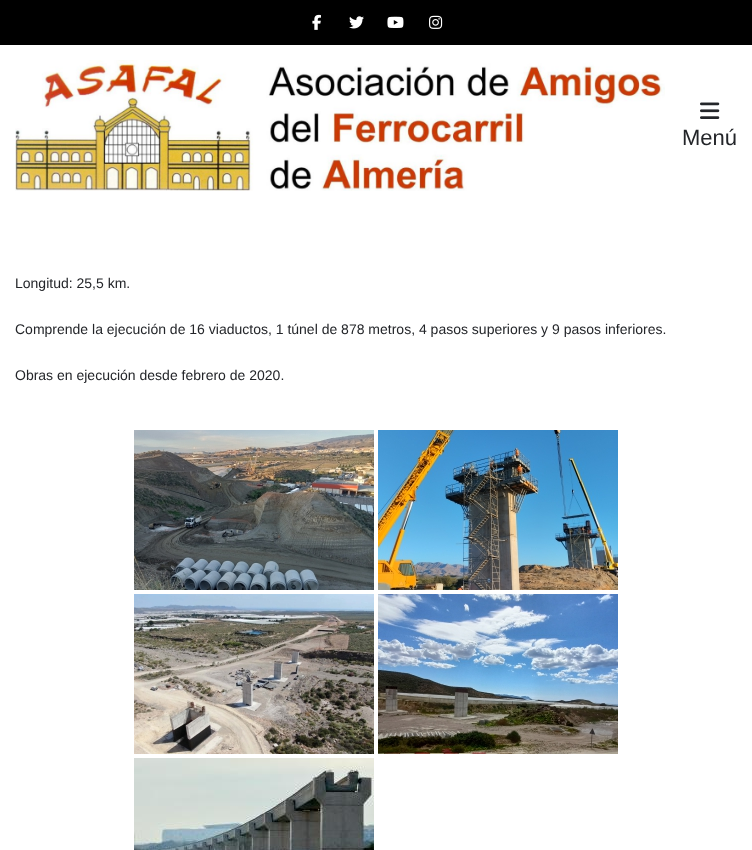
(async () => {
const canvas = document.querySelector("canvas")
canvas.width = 752
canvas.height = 850
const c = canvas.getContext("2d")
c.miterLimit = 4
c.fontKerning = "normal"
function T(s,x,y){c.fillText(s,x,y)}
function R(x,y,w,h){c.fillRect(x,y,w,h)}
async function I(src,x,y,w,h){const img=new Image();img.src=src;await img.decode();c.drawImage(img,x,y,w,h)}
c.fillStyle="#fff"
R(0,0,752,850)
c.fillStyle="#000"
R(0,0,752,45)
await I("1.png",312,14,9,16)
await I("2.png",349,16,15,13)
await I("3.png",387,16,17,12)
await I("4.png",429,15,14,14)
await I("5.png",15,60,650,131)
await I("6.png",700,102,20,17)
c.font="22px Liberation Sans"
c.fillStyle="#232529"
T("Menú",682,145)
c.font="14px Liberation Sans"
T("Longitud: 25,5 km.",15,288)
T("Comprende la ejecución de 16 viaductos, 1 túnel de 878 metros, 4 pasos superiores y 9 pasos inferiores.",15,334)
T("Obras en ejecución desde febrero de 2020.",15,380)
await I("7.png",134,430,240,160)
await I("8.png",378,430,240,160)
await I("9.png",134,594,240,160)
await I("10.png",378,594,240,160)
await I("11.png",134,758,240,92)
})()
